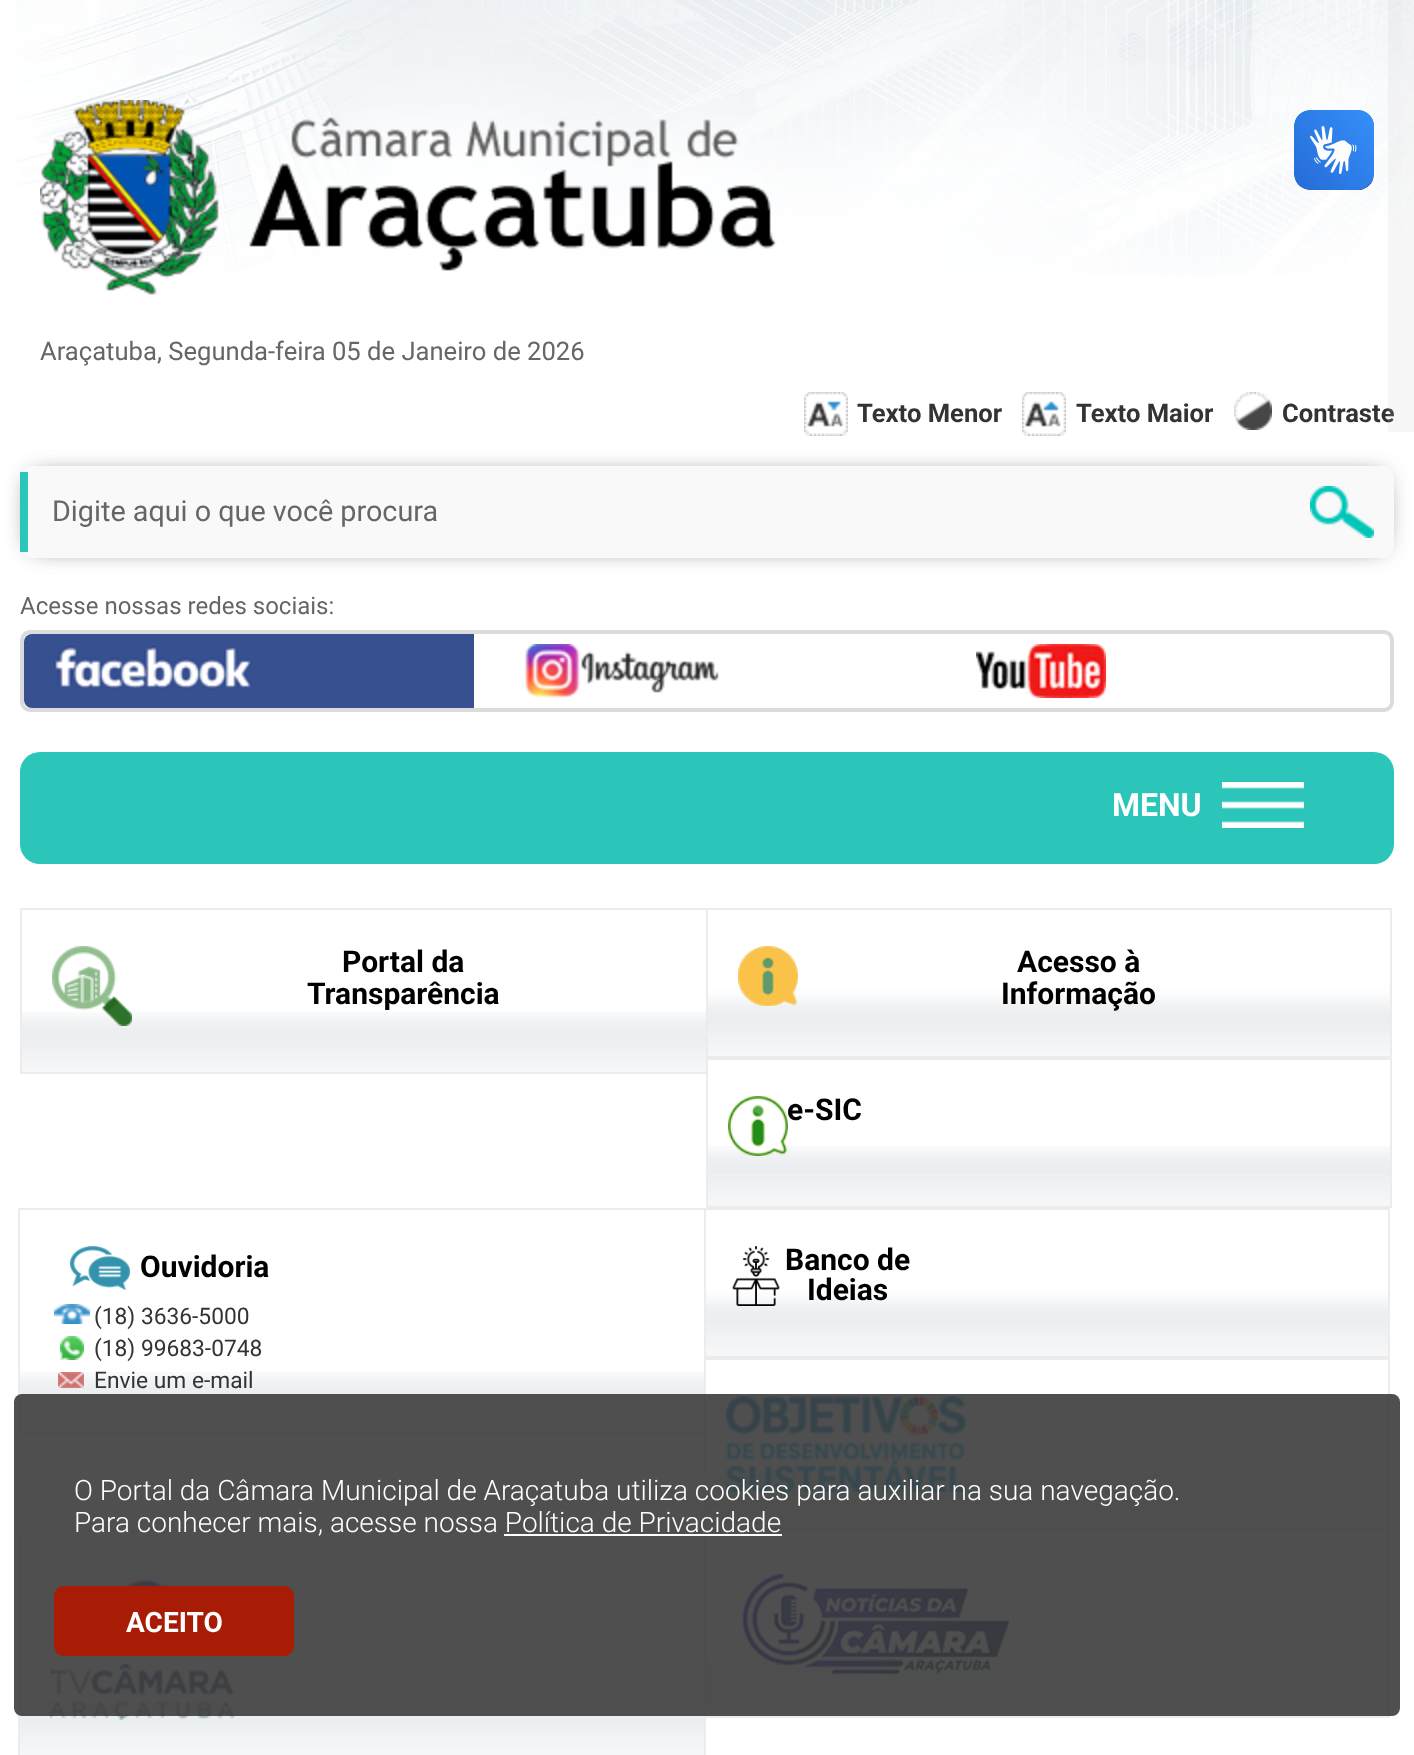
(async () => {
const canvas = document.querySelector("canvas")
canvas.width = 1414
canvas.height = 1755
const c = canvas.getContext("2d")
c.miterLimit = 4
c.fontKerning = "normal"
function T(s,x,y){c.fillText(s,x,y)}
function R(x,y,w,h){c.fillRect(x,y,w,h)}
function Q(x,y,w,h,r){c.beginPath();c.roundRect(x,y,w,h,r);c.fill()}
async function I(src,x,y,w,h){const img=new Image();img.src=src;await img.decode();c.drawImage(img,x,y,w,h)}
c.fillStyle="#fff"
R(0,0,1414,1755)
await I("1.png",16,0,1398,275)
await I("2.png",1294,110,80,80)
await I("3.png",1294,110,80,80)
c.font="bold 25.6px Roboto"
c.fillStyle="#333"
T("Contraste",1282,422)
c.fillStyle="#cccccc26"
R(1388,0,26,432)
await I("4.png",40,100,737,195)
c.font="25.6px Roboto"
c.fillStyle="#666"
T("Araçatuba, Segunda-feira 05 de Janeiro de 2026",40,360)
await I("5.png",804,392,44,44)
c.font="bold 25.6px Roboto"
c.fillStyle="#333"
T("Texto Menor",857,422)
await I("6.png",1022,392,44,44)
T("Texto Maior",1076,422)
await I("7.png",1234,392,38,38)
c.fillStyle="#3d3d3d"
c.filter="blur(12px)"
c.beginPath()
c.rect(32,478,1350,68)
c.fill()
c.filter="none"
c.fillStyle="#f9f9f9"
Q(20,466,1374,92,12)
c.fillStyle="#2cc5ba"
R(20,472,8,80)
c.font="28.75px Roboto"
c.fillStyle="#666"
T("Digite aqui o que você procura",52,521)
await I("8.png",1310,486,64,52)
c.font="24px Roboto"
T("Acesse nossas redes sociais:",20,614)
c.beginPath()
c.roundRect(22,632,1370,78,8)
c.strokeStyle="#dbdbdb"
c.lineWidth=4
c.stroke()
c.fillStyle="#375090"
c.beginPath()
c.roundRect(24,634,450,74,[8,0,0,8])
c.fill()
await I("9.png",54,646,198,44)
await I("10.png",525,644,194,54)
await I("11.png",976,644,130,54)
c.fillStyle="#2cc5ba"
Q(20,752,1374,112,20)
c.font="bold 32px Roboto"
c.fillStyle="#fff"
T("MENU",1112,816)
await I("12.png",1222,782,82,46)
await I("13.png",22,1012,684,60)
c.strokeStyle="#ececec"
c.lineWidth=2
c.strokeRect(21,909,686,164)
await I("14.png",52,946,80,80)
c.font="bold 30px Roboto"
c.fillStyle="#000"
T("Portal da",342,972)
T("Transparência",307,1004)
await I("15.png",708,984,682,72)
c.strokeRect(707,909,684,148)
await I("16.png",738,946,60,60)
T("Acesso à",1017,972)
T("Informação",1001,1004)
await I("17.png",708,1146,682,60)
c.strokeRect(707,1059,684,148)
await I("18.png",728,1096,60,60)
T("e-SIC",787,1120)
await I("13.png",20,1372,684,60)
c.strokeRect(19,1209,686,224)
await I("19.png",70,1246,60,44)
T("Ouvidoria",140,1277)
await I("20.png",54,1304,36,20)
c.font="22.75px Roboto"
c.fillStyle="#333"
T("(18) 3636-5000",94,1324)
await I("21.png",60,1336,24,24)
T("(18) 99683-0748",94,1356)
await I("22.png",58,1372,26,16)
T("Envie um e-mail",94,1388)
await I("15.png",706,1284,682,72)
c.strokeRect(705,1209,684,148)
await I("23.png",732,1246,48,60)
c.font="bold 30px Roboto"
c.fillStyle="#000"
T("Banco de",785,1270)
T("Ideias",807,1300)
await I("17.png",706,1468,682,60)
c.strokeRect(705,1359,684,170)
await I("24.png",726,1396,240,96)
await I("25.png",20,1696,684,59)
c.strokeRect(19,1531,686,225)
await I("26.png",50,1568,184,152)
await I("15.png",706,1644,682,72)
c.strokeRect(705,1531,684,186)
await I("27.png",742,1572,269,105)
c.fillStyle="#3c3c3ce6"
Q(14,1394,1386,322,8)
c.font="300 28px Roboto"
c.fillStyle="#fff"
T("O Portal da Câmara Municipal de Araçatuba utiliza cookies para auxiliar na sua navegação.",74,1500)
T("Para conhecer mais, acesse nossa Política de Privacidade",74,1532)
R(504,1534,278,2)
c.fillStyle="#a81b04"
Q(54,1586,240,70,10)
c.font="bold 28px Roboto"
c.fillStyle="#fff"
T("ACEITO",126,1632)
})()
